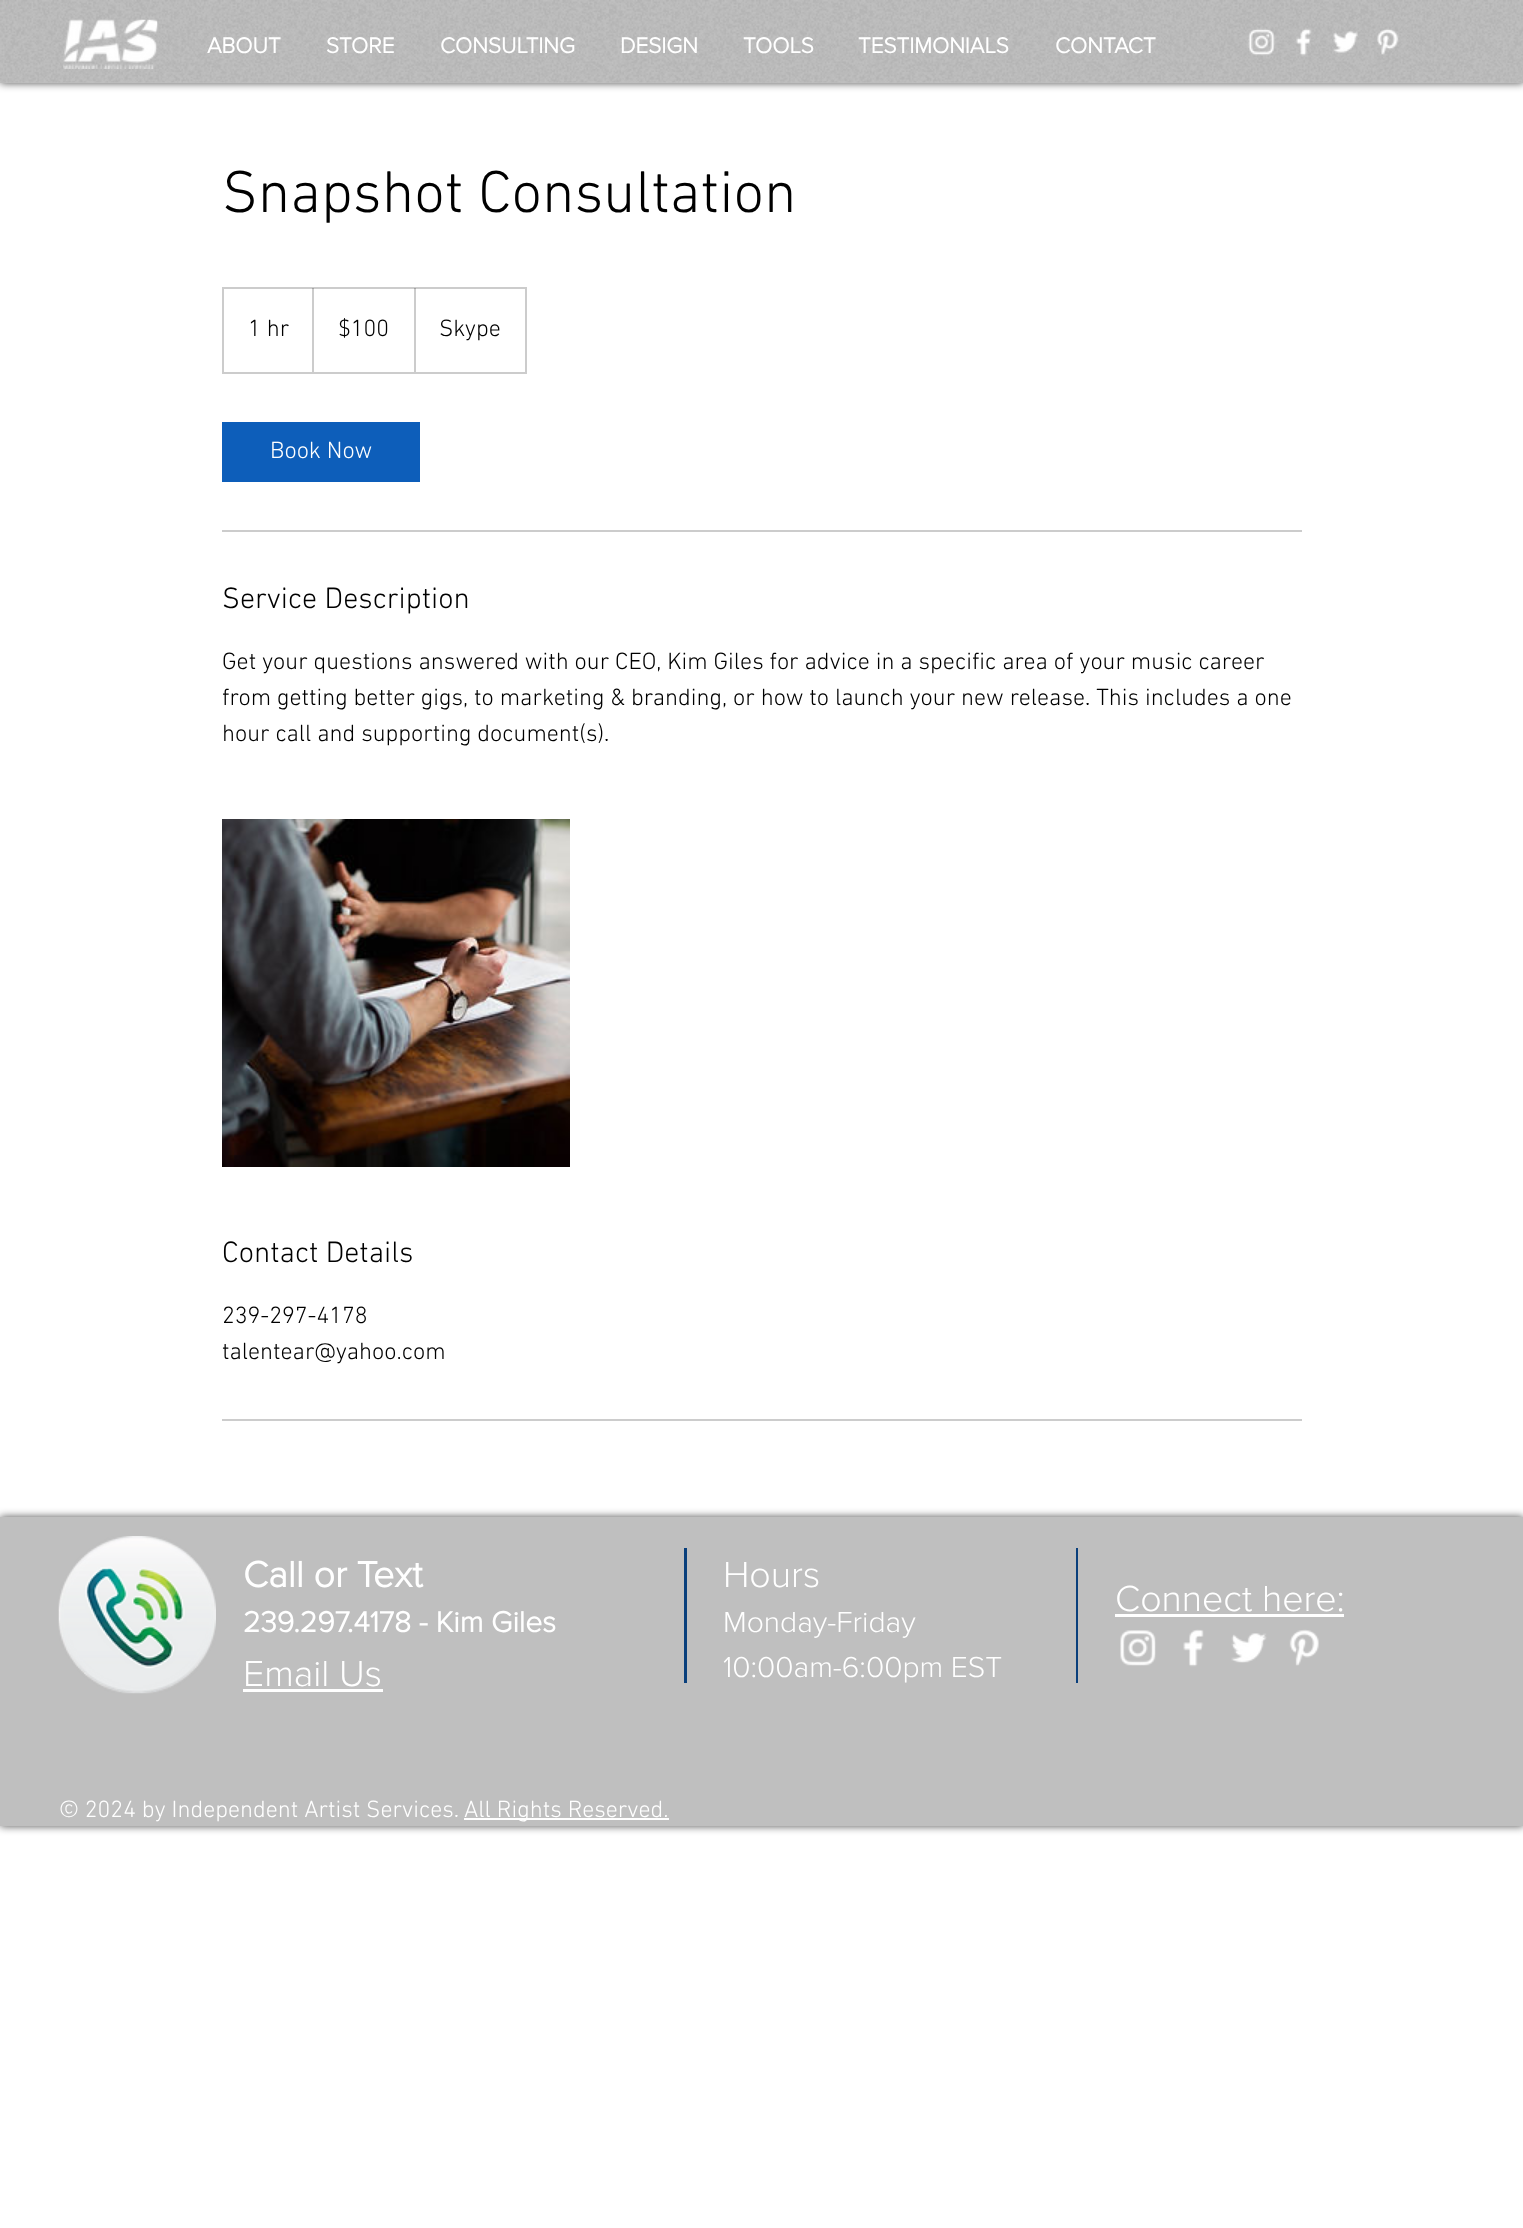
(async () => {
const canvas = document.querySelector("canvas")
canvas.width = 1523
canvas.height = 2228
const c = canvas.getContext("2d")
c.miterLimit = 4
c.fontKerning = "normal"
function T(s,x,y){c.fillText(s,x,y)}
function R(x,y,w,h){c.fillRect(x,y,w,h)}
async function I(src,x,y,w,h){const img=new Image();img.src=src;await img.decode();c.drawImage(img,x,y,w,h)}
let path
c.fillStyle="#fff"
R(0,0,1523,2228)
c.save()
path = new Path2D("M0 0h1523v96h-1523zm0 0h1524v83h-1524z")
c.clip(path,"evenodd")
c.fillStyle="#000000b3"
c.filter="blur(4px)"
c.beginPath()
c.rect(0,0,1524,83)
c.fill()
c.filter="none"
c.restore()
c.fillStyle="#00000040"
R(0,0,1523,83)
await I("1.png",0,0,1523,83)
await I("2.png",63,19,95,50)
c.font="bold 22.5px Proxima Nova"
c.fillStyle="#fff"
T("ABOUT",207,53)
T("STORE",326,53)
T("CONSULTING",440,53)
T("DESIGN",620,53)
T("TOOLS",743,53)
T("TESTIMONIALS",858,53)
T("CONTACT",1055,53)
await I("3.png",1248,28,27,28)
await I("4.png",1296,28,16,28)
await I("5.png",1333,31,25,22)
await I("6.png",1377,28,22,27)
c.font="300 60px 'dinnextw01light'"
c.fillStyle="#000"
T("Snapshot Consultation",222,212)
c.strokeStyle="#ccc"
c.lineWidth=2
c.strokeRect(223,288,303,85)
c.font="300 24px 'dinnextw01light'"
T("1 hr",248,336)
c.save()
c.beginPath()
c.rect(224,288,301,84)
c.clip()
c.fillStyle="#00000033"
path = new Path2D("M312 372v-86l2 2v84z")
c.fill(path)
c.restore()
T("$100",338,336)
c.save()
c.beginPath()
c.rect(224,288,301,84)
c.clip()
c.fillStyle="#00000033"
path = new Path2D("M414 372v-86l2 2v84z")
c.fill(path)
c.restore()
T("Skype",439,336)
c.fillStyle="#0d5eba"
R(222,422,198,60)
c.fillStyle="#fff"
T("Book Now",270,458)
c.fillStyle="#ccc"
R(222,530,1080,2)
c.font="300 30px 'dinnextw01light'"
c.fillStyle="#000"
T("Service Description",222,608)
c.font="300 24px 'dinnextw01light'"
T("Get your questions answered with our CEO, Kim Giles for advice in a specific area of your music career",222,669)
T("from getting better gigs, to marketing & branding, or how to launch your new release. This includes a one",222,705)
T("hour call and supporting document(s).",222,741)
await I("7.png",222,819,348,348)
c.font="300 30px 'dinnextw01light'"
T("Contact Details",222,1262)
c.font="300 24px 'dinnextw01light'"
T("239-297-4178",222,1323)
T("talentear@yahoo.com",222,1359)
c.fillStyle="#ccc"
R(222,1419,1080,2)
c.save()
path = new Path2D("M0 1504h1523v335h-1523zm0 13h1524v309h-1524z")
c.clip(path,"evenodd")
c.fillStyle="#000000b3"
c.filter="blur(4px)"
c.beginPath()
c.rect(0,1517,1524,309)
c.fill()
c.filter="none"
c.restore()
c.fillStyle="#00000040"
R(0,1517,1523,309)
await I("8.png",58,1536,158,158)
c.font="bold 37.5px Proxima Nova"
c.fillStyle="#fff"
T("Call or Text",243,1587)
c.font="bold 30px Proxima Nova"
T("239.297.4178 - Kim Giles",243,1632)
c.fillStyle="#093f7c"
R(684,1548,3,135)
c.font="300 37.5px Proxima Nova"
c.fillStyle="#fff"
T("Hours",723,1587)
c.font="300 30px Proxima Nova"
T("Monday-Friday",723,1632)
T("10:00am-6:00pm EST",723,1677)
c.fillStyle="#093f7c"
R(1076,1548,2,135)
c.font="300 37.5px Proxima Nova"
c.fillStyle="#fff"
T("Connect here:",1115,1611)
R(1115,1614,229,3)
await I("9.png",1120,1630,36,36)
await I("10.png",1183,1629,21,38)
await I("11.png",1231,1633,36,30)
await I("12.png",1289,1629,30,37)
T("Email Us",243,1686)
R(243,1689,140,3)
c.font="300 24px 'dinnextw01light'"
T("© 2024 by Independent Artist Services.",59,1817)
R(464,1818,205,2)
T("All Rights Reserved.",464,1817)
})()
